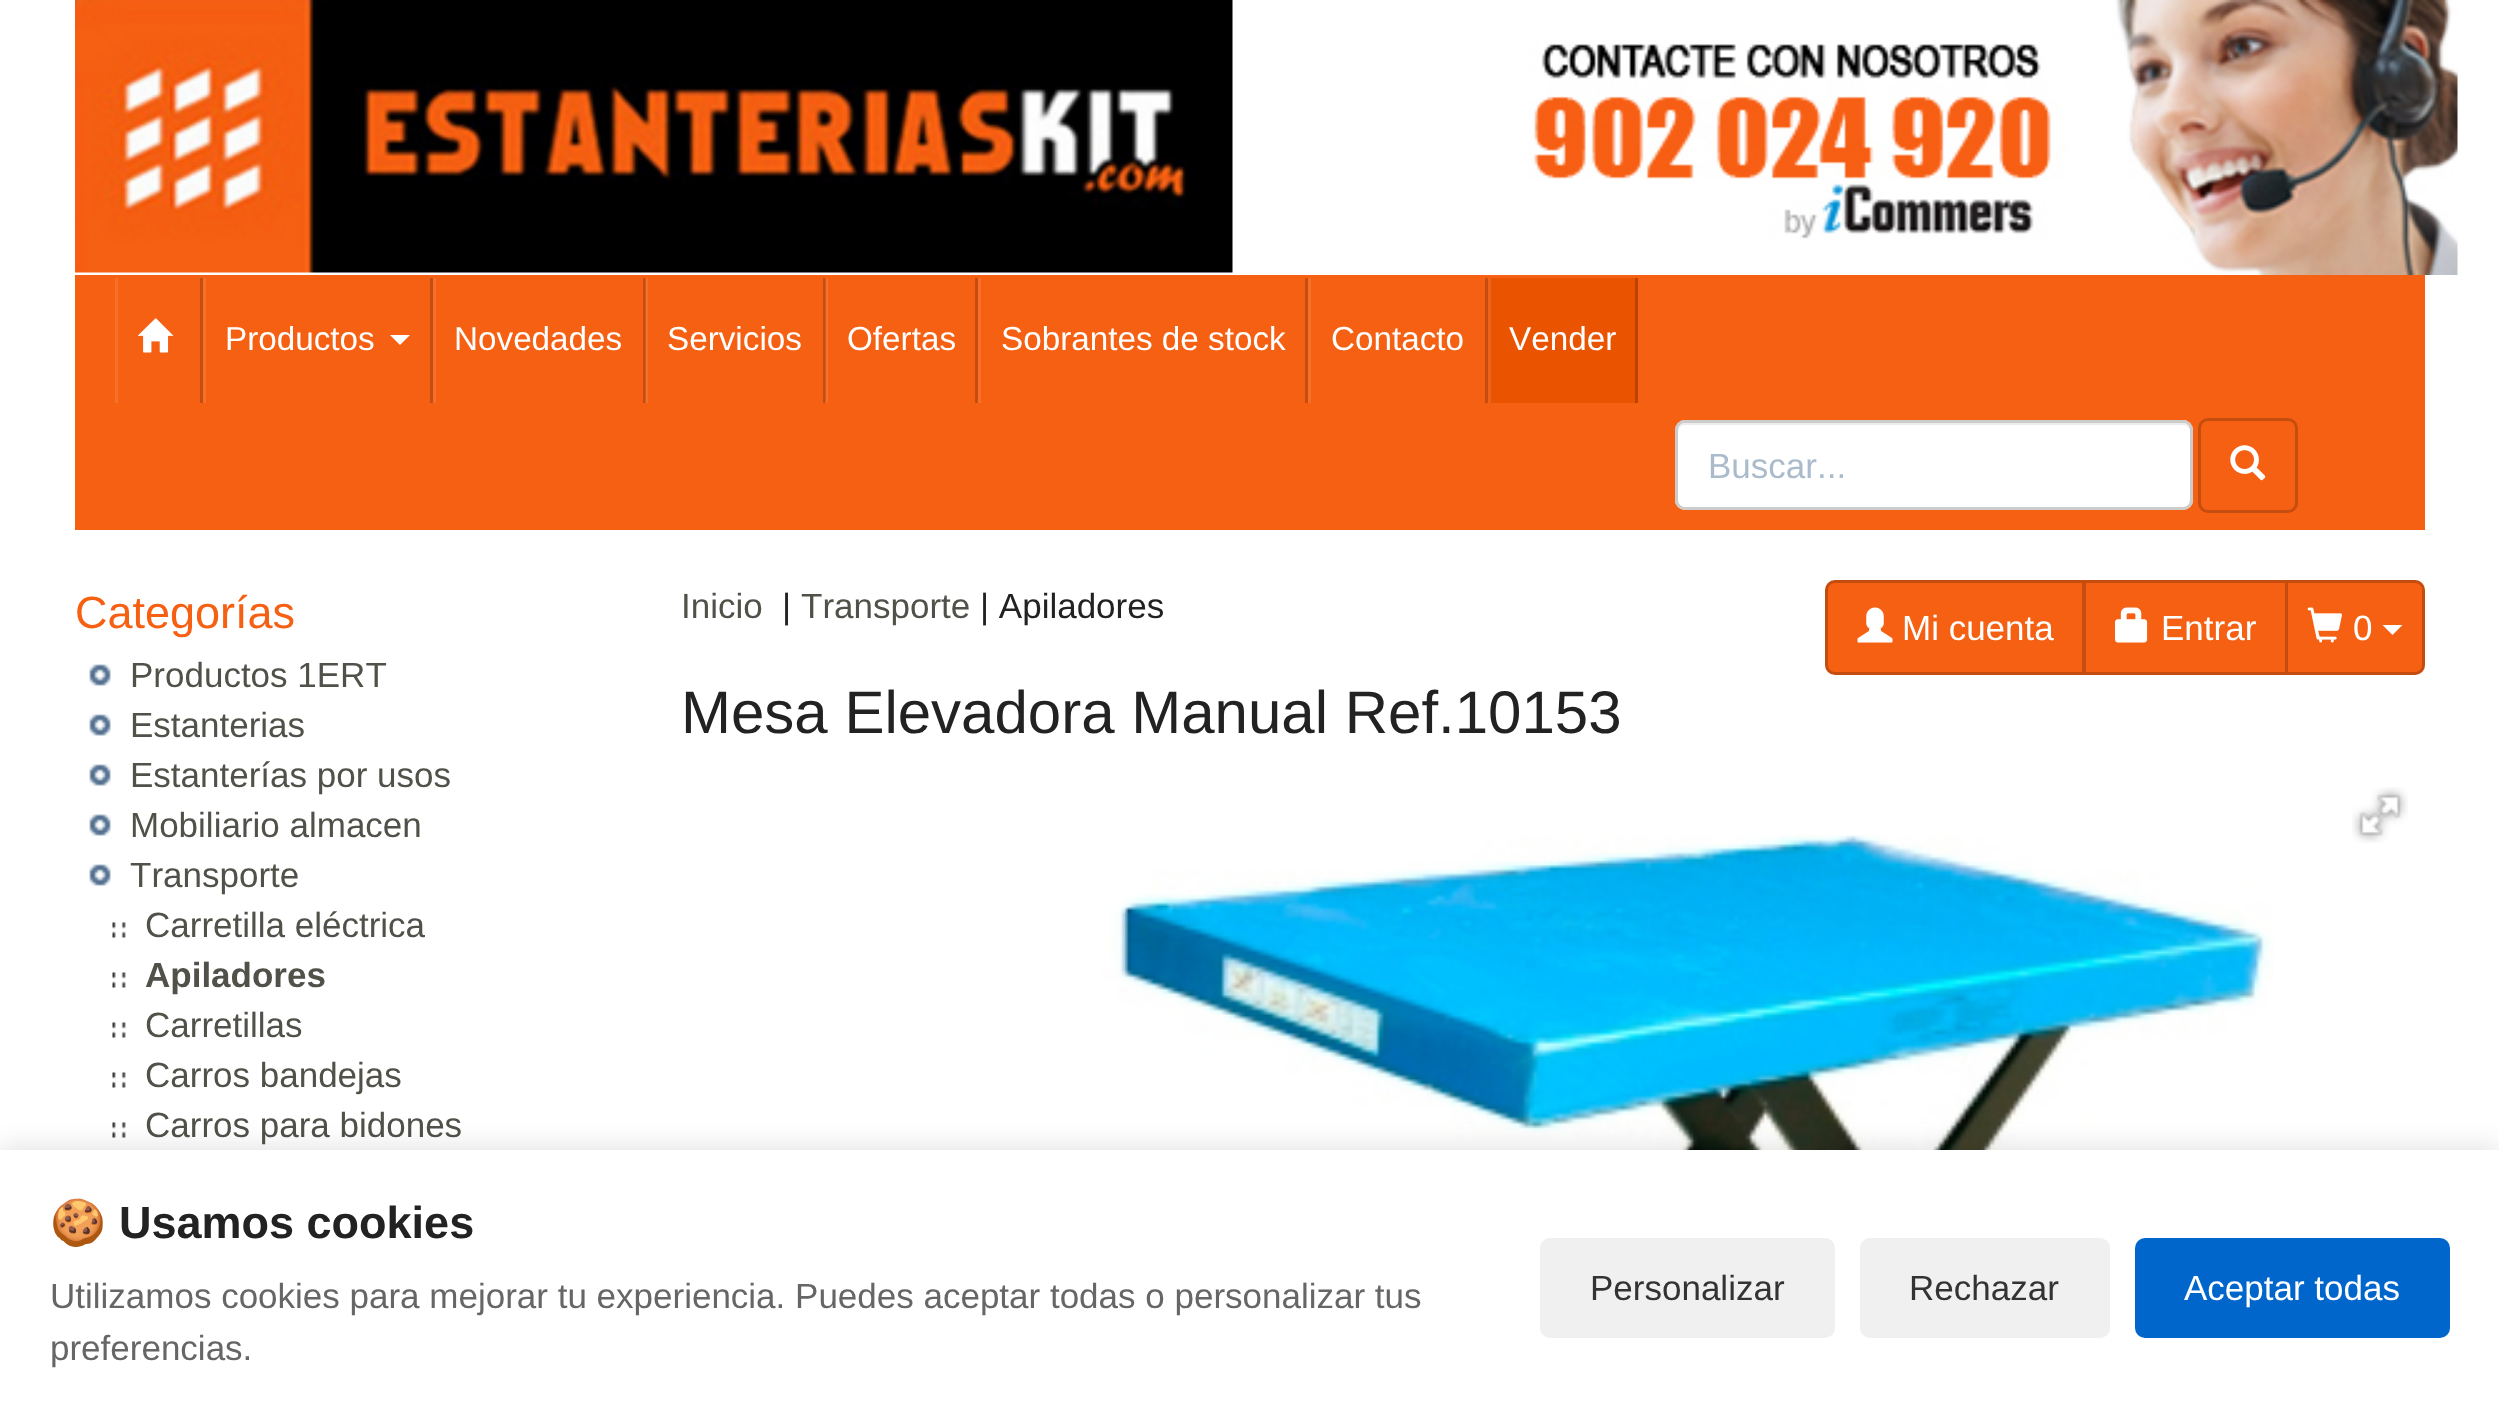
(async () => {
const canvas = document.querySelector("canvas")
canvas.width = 2499
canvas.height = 1424
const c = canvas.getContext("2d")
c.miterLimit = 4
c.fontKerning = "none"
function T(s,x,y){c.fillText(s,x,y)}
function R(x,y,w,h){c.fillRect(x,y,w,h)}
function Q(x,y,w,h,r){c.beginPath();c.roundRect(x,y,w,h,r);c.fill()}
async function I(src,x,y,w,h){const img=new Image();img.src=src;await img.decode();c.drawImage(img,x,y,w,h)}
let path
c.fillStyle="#fff"
R(0,0,2499,1424)
await I("1.png",75,0,1158,273)
await I("2.png",1528,0,930,275)
c.fillStyle="#f66013"
R(75,275,2350,255)
c.fillStyle="#f7702b"
R(826,278,2,125)
R(646,278,2,125)
c.fillStyle="#c54d0f"
R(200,278,3,125)
c.fillStyle="#f7702b"
R(115,278,3,125)
await I("3.png",138,318,36,35)
c.fillStyle="#c54d0f"
R(430,278,3,125)
c.fillStyle="#f7702b"
R(203,278,3,125)
c.font="33.25px Liberation Sans"
c.fillStyle="#fff"
T("Productos",225,350)
path = new Path2D("M390 335h20l-10 10z")
c.fill(path)
c.fillStyle="#c54d0f"
R(643,278,2,125)
c.fillStyle="#cb5f27"
R(645,278,1,125)
c.fillStyle="#f7702b"
R(433,278,3,125)
c.fillStyle="#fff"
T("Novedades",454,350)
c.fillStyle="#c54d0f"
R(823,278,2,125)
c.fillStyle="#cb5f27"
R(825,278,1,125)
c.fillStyle="#fff"
T("Servicios",667,350)
c.fillStyle="#c54d0f"
R(975,278,3,125)
c.fillStyle="#fff"
T("Ofertas",847,350)
c.fillStyle="#c54d0f"
R(1305,278,3,125)
c.fillStyle="#f7702b"
R(978,278,3,125)
c.fillStyle="#fff"
T("Sobrantes de stock",1001,350)
c.fillStyle="#c54d0f"
R(1485,278,3,125)
c.fillStyle="#f7702b"
R(1308,278,3,125)
c.fillStyle="#fff"
T("Contacto",1331,350)
c.fillStyle="#ea5300"
R(1491,278,144,125)
c.fillStyle="#bb4200"
R(1635,278,3,125)
c.fillStyle="#ec641a"
R(1488,278,3,125)
c.fillStyle="#fff"
T("Vender",1509,350)
Q(1675,420,518,90,10)
c.fillStyle="#ececec"
path = new Path2D("M1685 425h497c5 0 8 3 8 7v-1c0-4-4-8-8-8h-496c-4 0-8 4-8 8v1c0-4 3-7 7-7z")
c.fill(path)
c.beginPath()
c.roundRect(1676.5,421.5,515,87,8.5)
c.strokeStyle="#ccc"
c.lineWidth=3
c.stroke()
c.font="35px Liberation Sans"
c.fillStyle="#abc"
T("Buscar...",1708,478)
c.beginPath()
c.roundRect(2199.5,419.5,97,92,8.5)
c.strokeStyle="#c54d0f"
c.stroke()
await I("4.png",2230,445,36,36)
c.font="45px Liberation Sans"
c.fillStyle="#f66013"
T("Categorías",75,628)
await I("5.png",89,664,22,22)
c.font="35px Liberation Sans"
c.fillStyle="#51514a"
T("Productos 1ERT",130,687)
await I("5.png",89,714,22,22)
T("Estanterias",130,737)
await I("5.png",89,764,22,22)
T("Estanterías por usos",130,787)
await I("5.png",89,814,22,22)
T("Mobiliario almacen",130,837)
await I("5.png",89,864,22,22)
T("Transporte",130,887)
await I("6.png",112,922,14,16)
T("Carretilla eléctrica",145,937)
await I("6.png",112,972,14,16)
c.font="bold 35px Liberation Sans"
T("Apiladores",145,987)
await I("7.png",112,1022,14,16)
c.font="35px Liberation Sans"
T("Carretillas",145,1037)
await I("6.png",112,1072,14,16)
T("Carros bandejas",145,1087)
await I("6.png",112,1122,14,16)
T("Carros para bidones",145,1137)
T("Inicio",681,618)
c.fillStyle="#222"
T("|",782,618)
c.fillStyle="#51514a"
T("Transporte",801,618)
c.fillStyle="#222"
T("| Apiladores",980,618)
c.fillStyle="#f66013"
c.beginPath()
c.roundRect(1825,580,260,95,[10,0,0,10])
c.fill()
c.beginPath()
c.roundRect(1826.5,581.5,257,92,[8.5,0,0,8.5])
c.strokeStyle="#00000033"
c.stroke()
await I("8.png",1857,607,36,36)
c.fillStyle="#fff"
T("Mi cuenta",1902,640)
c.fillStyle="#f66013"
c.beginPath()
c.rect(2084.5,581.5,202,92)
c.fill()
c.strokeStyle="#c54d0f"
c.stroke()
await I("9.png",2115,607,33,36)
c.fillStyle="#fff"
T("Entrar",2161,640)
c.fillStyle="#f66013"
c.beginPath()
c.roundRect(2285,580,140,95,[0,10,10,0])
c.fill()
c.beginPath()
c.roundRect(2286.5,581.5,137,92,[0,8.5,8.5,0])
c.strokeStyle="#00000033"
c.stroke()
await I("10.png",2307,607,35,36)
c.fillStyle="#fff"
T("0",2353,640)
path = new Path2D("M2382.5 625h20l-10 10z")
c.fill(path)
c.font="60px Liberation Sans"
c.fillStyle="#222"
T("Mesa Elevadora Manual Ref.10153",681,733)
await I("11.png",2352,787,56,56)
await I("12.png",850,834,1424,316)
c.fillStyle="#0000001a"
c.filter="blur(12.5px)"
c.beginPath()
c.rect(0,1145,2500,275)
c.fill()
c.filter="none"
c.fillStyle="#fff"
R(0,1150,2499,274)
c.font="bold 45px Noto Color Emoji"
c.fillStyle="#222"
T("🍪",50,1238)
c.font="bold 45px Liberation Sans"
T("Usamos cookies",119,1238)
c.font="35px Liberation Sans"
c.fillStyle="#666"
T("Utilizamos cookies para mejorar tu experiencia. Puedes aceptar todas o personalizar tus",50,1308)
T("preferencias.",50,1360)
c.fillStyle="#f0f0f0"
Q(1540,1238,295,100,10)
c.fillStyle="#333"
T("Personalizar",1590,1300)
c.fillStyle="#f0f0f0"
Q(1860,1238,250,100,10)
c.fillStyle="#333"
T("Rechazar",1909,1300)
c.fillStyle="#06c"
Q(2135,1238,315,100,10)
c.fillStyle="#fff"
T("Aceptar todas",2184,1300)
})()
